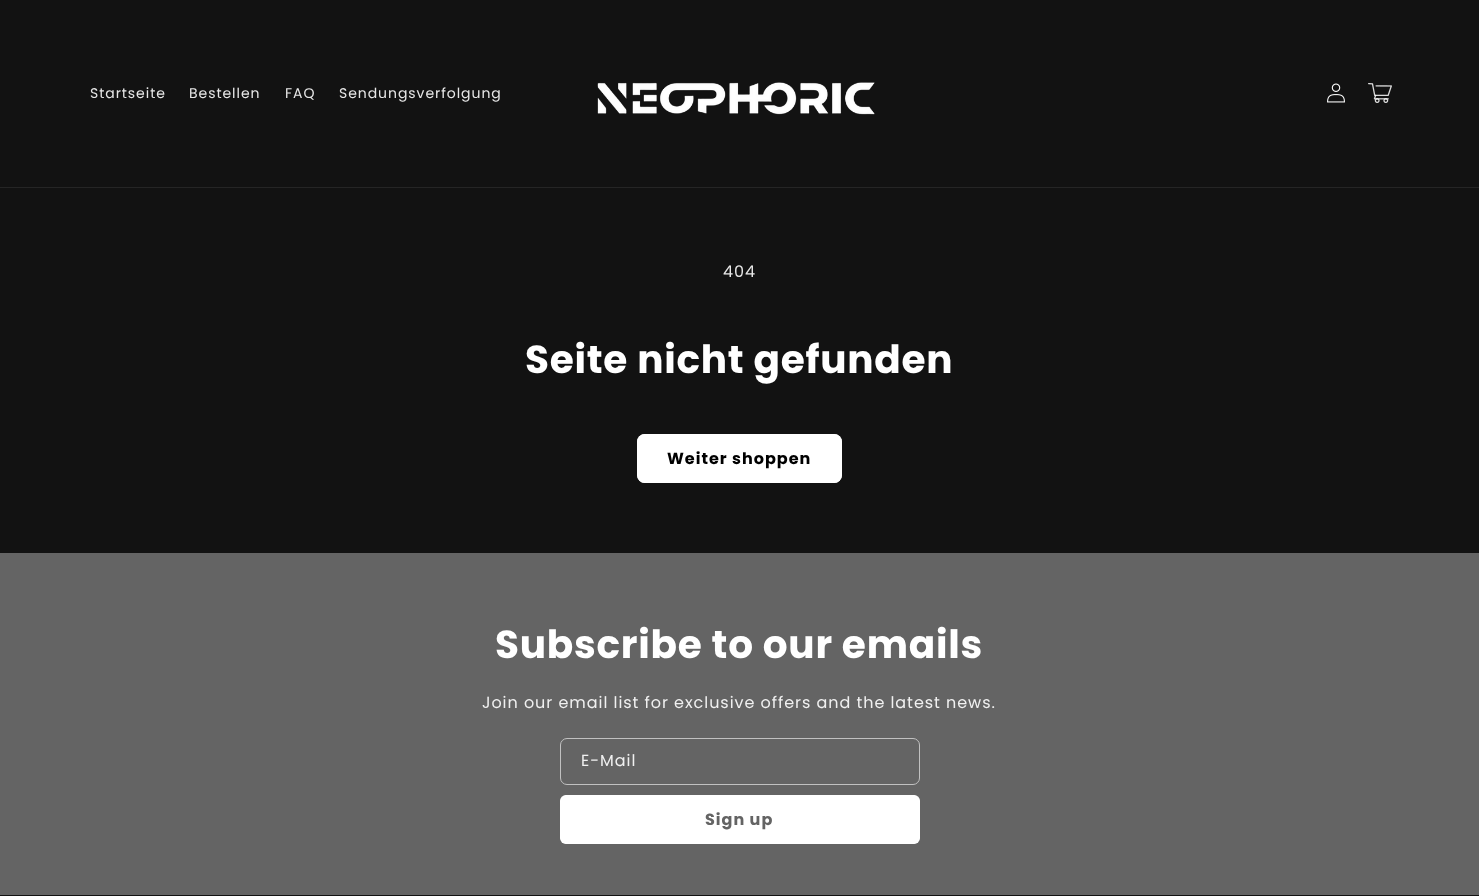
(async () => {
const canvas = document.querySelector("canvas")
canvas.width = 1479
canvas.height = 896
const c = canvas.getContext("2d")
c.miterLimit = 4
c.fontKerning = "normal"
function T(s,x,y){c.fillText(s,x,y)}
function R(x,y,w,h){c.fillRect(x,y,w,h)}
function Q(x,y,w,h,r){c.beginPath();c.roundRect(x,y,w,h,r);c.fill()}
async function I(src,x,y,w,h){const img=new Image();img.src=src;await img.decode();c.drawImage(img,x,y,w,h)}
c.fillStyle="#121212"
R(0,0,1479,896)
c.fillStyle="#252525"
R(0,187,1479,1)
c.letterSpacing="0.95px"
c.font="14px Poppins"
c.fillStyle="#e7e7e7"
T("Startseite",90,98)
T("Bestellen",189,98)
T("FAQ",285,98)
T("Sendungsverfolgung",339,98)
await I("1.png",597,82,278,33)
await I("2.png",1327,83,18,20)
await I("3.png",1368,83,24,20)
c.font="16px Poppins"
T("404",723,277)
c.letterSpacing="0.75px"
c.font="bold 39px Poppins"
c.fillStyle="#fff"
T("Seite nicht gefunden",525,373)
Q(637,434,205,49,8)
c.beginPath()
c.roundRect(638,435,203,47,7)
c.strokeStyle="#fff"
c.lineWidth=2
c.stroke()
c.letterSpacing="1px"
c.font="bold 16px Poppins"
c.fillStyle="#000"
T("Weiter shoppen",667,464)
c.fillStyle="#646464"
R(0,553,1479,342)
c.letterSpacing="0.75px"
c.font="bold 39px Poppins"
c.fillStyle="#fff"
T("Subscribe to our emails",495,658)
c.letterSpacing="0.95px"
c.font="16px Poppins"
c.fillStyle="#f0f0f0"
T("Join our email list for exclusive offers and the latest news.",482,708)
c.beginPath()
c.roundRect(560.5,738.5,359,46,6.5)
c.strokeStyle="#c1c1c1"
c.lineWidth=1
c.stroke()
c.letterSpacing="1px"
T("E-Mail",581,766)
c.beginPath()
c.roundRect(561,796,358,47,7)
c.strokeStyle="#fff"
c.lineWidth=2
c.stroke()
c.fillStyle="#fff"
Q(560,795,360,49,6)
c.font="bold 16px Poppins"
c.fillStyle="#646464"
T("Sign up",705,825)
})()
